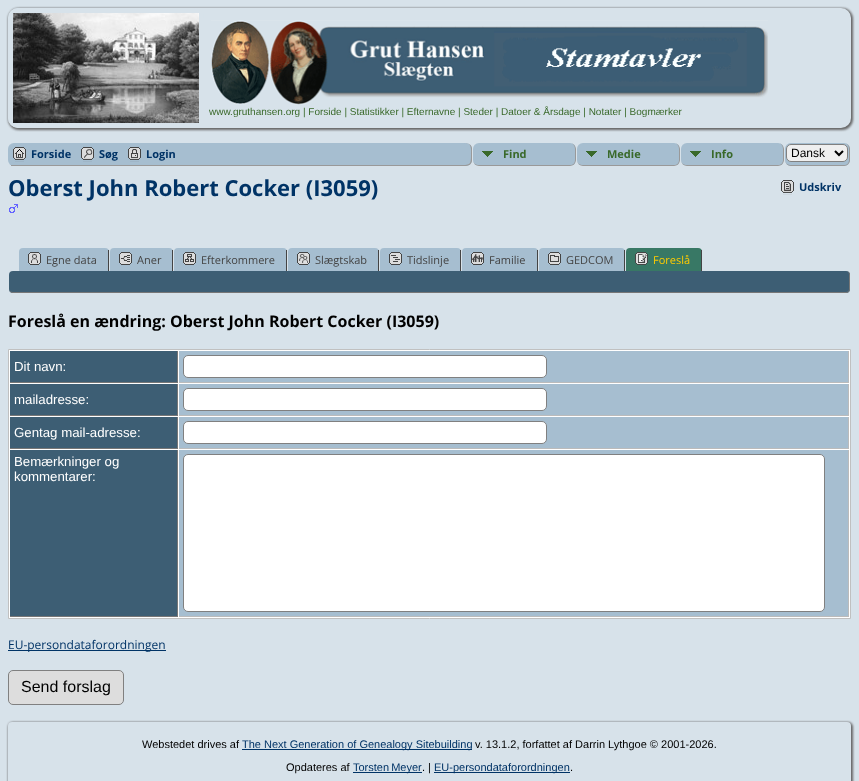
(async () => {
const canvas = document.querySelector("canvas")
canvas.width = 859
canvas.height = 781
const c = canvas.getContext("2d")
c.miterLimit = 4
c.fontKerning = "normal"
function T(s,x,y){c.fillText(s,x,y)}
function R(x,y,w,h){c.fillRect(x,y,w,h)}
function Q(x,y,w,h,r){c.beginPath();c.roundRect(x,y,w,h,r);c.fill()}
async function I(src,x,y,w,h){const img=new Image();img.src=src;await img.decode();c.drawImage(img,x,y,w,h)}
let path
c.fillStyle="#d7e2ea"
R(0,0,859,781)
c.fillStyle="#666"
c.filter="blur(1px)"
c.beginPath()
c.roundRect(8,8,845,122,11)
c.fill()
c.filter="none"
c.fillStyle="#d7e2ea"
Q(8,8,843,120,10)
Q(8,8,196,120,10)
await I("1.png",13,13,186,110)
await I("2.png",211,20,557,85)
c.font="10px Liberation Sans"
c.fillStyle="#39692a"
T("www.gruthansen.org | Forside | Statistikker | Efternavne | Steder | Datoer & Årsdage | Notater | Bogmærker",209,115)
c.fillStyle="#a6bed0"
Q(8,143,843,23,6)
c.fillStyle="#999"
R(11,165,450,1)
await I("3.png",13,147,13,15)
c.font="bold 11px Open Sans"
c.fillStyle="#036"
T("Forside",31,158)
await I("4.png",81,147,13,15)
T("Søg",99,158)
await I("5.png",128,147,13,15)
T("Login",146,158)
c.fillStyle="#d7e2ea"
R(466,143,385,23)
c.fillStyle="#a6bed0"
c.beginPath()
c.roundRect(461,143,11,23,[0,6,6,0])
c.fill()
c.fillStyle="#999"
path = new Path2D("M461 143c4 0 10-.5 11 5v13c-1 5.5-7 5-11 5zm0 0h6c5 1.5 4 8 4 11.5c0 10-.5 10.5-10 10.5z")
c.fill(path,"evenodd")
await I("6.png",473,143,102,22)
path = new Path2D("M479 143h91c3 0 6 3 6 6v11c0 3-3 6-6 6h-91c-3 0-6-3-6-6v-11c0-3 3-6 6-6zm0 0h91c3 0 5 3 5 6v11c0 3-2 5-5 5h-91c-3 0-6-2-6-5v-11c0-3 3-6 6-6z")
c.fill(path,"evenodd")
c.fillStyle="#39692a"
T("Find",503,158)
await I("6.png",577,143,102,22)
c.fillStyle="#999"
path = new Path2D("M583 143h91c3 0 6 3 6 6v11c0 3-3 6-6 6h-91c-3 0-6-3-6-6v-11c0-3 3-6 6-6zm0 0h91c3 0 5 3 5 6v11c0 3-2 5-5 5h-91c-3 0-6-2-6-5v-11c0-3 3-6 6-6z")
c.fill(path,"evenodd")
c.fillStyle="#39692a"
T("Medie",607,158)
await I("6.png",681,143,102,22)
c.fillStyle="#999"
path = new Path2D("M687 143h91c3 0 6 3 6 6v11c0 3-3 6-6 6h-91c-3 0-6-3-6-6v-11c0-3 3-6 6-6zm0 0h91c3 0 5 3 5 6v11c0 3-2 5-5 5h-91c-3 0-6-2-6-5v-11c0-3 3-6 6-6z")
c.fill(path,"evenodd")
c.fillStyle="#39692a"
T("Info",711,158)
c.fillStyle="#a6bed0"
Q(785,143,65,23,6)
c.fillStyle="#999"
path = new Path2D("M791 143h53c3 0 6 3 6 6v11c0 3-3 6-6 6h-53c-3 0-6-3-6-6v-11c0-3 3-6 6-6zm0 0h53c3 0 5 3 5 6v11c0 3-2 5-5 5h-53c-3 0-6-2-6-5v-11c0-3 3-6 6-6z")
c.fill(path,"evenodd")
c.fillStyle="#efefef"
c.beginPath()
c.roundRect(786.5,144.5,61,17,4.5)
c.fill()
c.strokeStyle="#808080"
c.stroke()
path = new Path2D("M835 151l4 4l4-4")
c.strokeStyle="#000"
c.lineWidth=2
c.stroke(path)
c.font="12px Liberation Sans"
c.fillStyle="#000"
T("Dansk",791,157)
c.font="bold 22px Open Sans"
c.fillStyle="#036"
T("Oberst John Robert Cocker (I3059)",8,196)
await I("7.png",781,180,13,15)
c.font="bold 11px Open Sans"
T("Udskriv",799,191)
await I("8.png",9,204,9,9)
c.fillStyle="#a6bed0"
c.beginPath()
c.roundRect(19,248,90,23,[4,4,0,0])
c.fill()
c.fillStyle="#444"
R(108,250,1,21)
await I("9.png",28,252,13,13)
c.font="11px Open Sans"
T("Egne data",46,264)
c.fillStyle="#a6bed0"
c.beginPath()
c.roundRect(110,248,63,23,[4,4,0,0])
c.fill()
c.fillStyle="#444"
R(172,250,1,21)
await I("10.png",119,252,13,13)
T("Aner",137,264)
c.fillStyle="#a6bed0"
c.beginPath()
c.roundRect(174,248,113,23,[4,4,0,0])
c.fill()
c.fillStyle="#444"
R(286,250,1,21)
await I("11.png",183,252,13,13)
T("Efterkommere",201,264)
c.fillStyle="#a6bed0"
c.beginPath()
c.roundRect(288,248,91,23,[4,4,0,0])
c.fill()
c.fillStyle="#444"
R(378,250,1,21)
await I("12.png",297,252,13,13)
T("Slægtskab",315,264)
c.fillStyle="#a6bed0"
c.beginPath()
c.roundRect(380,248,81,23,[4,4,0,0])
c.fill()
c.fillStyle="#444"
R(460,250,1,21)
await I("13.png",389,252,13,13)
T("Tidslinje",407,264)
c.fillStyle="#a6bed0"
c.beginPath()
c.roundRect(462,248,76,23,[4,4,0,0])
c.fill()
c.fillStyle="#444"
R(537,250,1,21)
await I("14.png",471,252,13,13)
T("Familie",489,264)
c.fillStyle="#a6bed0"
c.beginPath()
c.roundRect(539,248,86,23,[4,4,0,0])
c.fill()
c.fillStyle="#444"
R(624,250,1,21)
await I("15.png",548,252,13,13)
T("GEDCOM",566,264)
c.fillStyle="#387865"
c.beginPath()
c.roundRect(626,248,76,23,[4,4,0,0])
c.fill()
c.fillStyle="#444"
R(701,250,1,21)
await I("16.png",635,252,13,13)
c.fillStyle="#fc0"
T("Foreslå",653,264)
c.fillStyle="#3d5e74"
Q(9,271,841,22,4)
c.fillStyle="#777"
path = new Path2D("M13 271h833c2 0 4 2 4 4v14c0 2-2 4-4 4h-833c-2 0-4-2-4-4v-14c0-2 2-4 4-4zm0 0h833c2 0 3 2 3 4v14c0 2-1 3-3 3h-833c-2 0-4-1-4-3v-14c0-2 2-4 4-4z")
c.fill(path,"evenodd")
c.font="bold 16px Open Sans"
c.fillStyle="#000"
T("Foreslå en ændring: Oberst John Robert Cocker (I3059)",8,327)
c.fillStyle="#fff"
c.beginPath()
c.rect(8.5,349.5,842,269)
c.fill()
c.strokeStyle="#c0c0c0"
c.lineWidth=1
c.stroke()
c.fillStyle="#3d5e74"
R(10,351,167,31)
c.fillStyle="#777"
R(177,351,1,32)
R(10,382,168,1)
c.font="13.25px Liberation Sans"
c.fillStyle="#fff"
T("Dit navn:",14,371)
c.fillStyle="#a6bed0"
R(179,351,669,31)
c.fillStyle="#bbb"
R(848,351,1,32)
R(179,382,670,1)
c.fillStyle="#fff"
c.beginPath()
c.roundRect(183.5,355.5,363,22,4.5)
c.fill()
c.strokeStyle="#808080"
c.stroke()
c.fillStyle="#3d5e74"
R(10,384,167,31)
c.fillStyle="#777"
R(177,384,1,32)
R(10,415,168,1)
c.fillStyle="#fff"
T("mailadresse:",14,404)
c.fillStyle="#a6bed0"
R(179,384,669,31)
c.fillStyle="#bbb"
R(848,384,1,32)
R(179,415,670,1)
c.fillStyle="#fff"
c.beginPath()
c.roundRect(183.5,388.5,363,22,4.5)
c.fill()
c.stroke()
c.fillStyle="#3d5e74"
R(10,417,167,31)
c.fillStyle="#777"
R(177,417,1,32)
R(10,448,168,1)
c.fillStyle="#fff"
T("Gentag mail-adresse:",14,437)
c.fillStyle="#a6bed0"
R(179,417,669,31)
c.fillStyle="#bbb"
R(848,417,1,32)
R(179,448,670,1)
c.fillStyle="#fff"
c.beginPath()
c.roundRect(183.5,421.5,363,22,4.5)
c.fill()
c.stroke()
c.fillStyle="#3d5e74"
R(10,450,167,166)
c.fillStyle="#777"
R(177,450,1,167)
R(10,616,168,1)
c.fillStyle="#fff"
T("Bemærkninger og",14,466)
T("kommentarer:",14,481)
c.fillStyle="#a6bed0"
R(179,450,669,166)
c.fillStyle="#bbb"
R(848,450,1,167)
R(179,616,670,1)
c.fillStyle="#fff"
c.beginPath()
c.roundRect(183.5,454.5,641,157,4.5)
c.fill()
c.stroke()
c.fillStyle="#036"
R(8,650,158,1)
c.font="12px Open Sans"
T("EU-persondataforordningen",8,649)
c.fillStyle="#ddd"
c.beginPath()
c.roundRect(8.5,670.5,115,34,4.5)
c.fill()
c.stroke()
c.font="16px Liberation Sans"
c.fillStyle="#000"
T("Send forslag",21,692)
c.fillStyle="#666"
c.filter="blur(1px)"
c.beginPath()
c.roundRect(8,722,845,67,5)
c.fill()
c.filter="none"
c.fillStyle="#d7e2ea"
Q(8,722,843,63,4)
c.font="11px Liberation Sans"
c.fillStyle="#000"
T("Webstedet drives af",142,748)
c.fillStyle="#036"
R(242,749,230,1)
T("The Next Generation of Genealogy Sitebuilding",242,748)
c.fillStyle="#000"
T("v. 13.1.2, forfattet af Darrin Lythgoe © 2001-2026.",475,748)
T("Opdateres af",286,771)
c.fillStyle="#036"
R(353,772,69,1)
c.wordSpacing="-1px"
T("Torsten Meyer",353,771)
c.wordSpacing="0px"
c.fillStyle="#000"
T(". |",422,771)
c.fillStyle="#036"
R(434,772,136,1)
T("EU-persondataforordningen",434,771)
c.fillStyle="#000"
T(".",570,771)
})()
